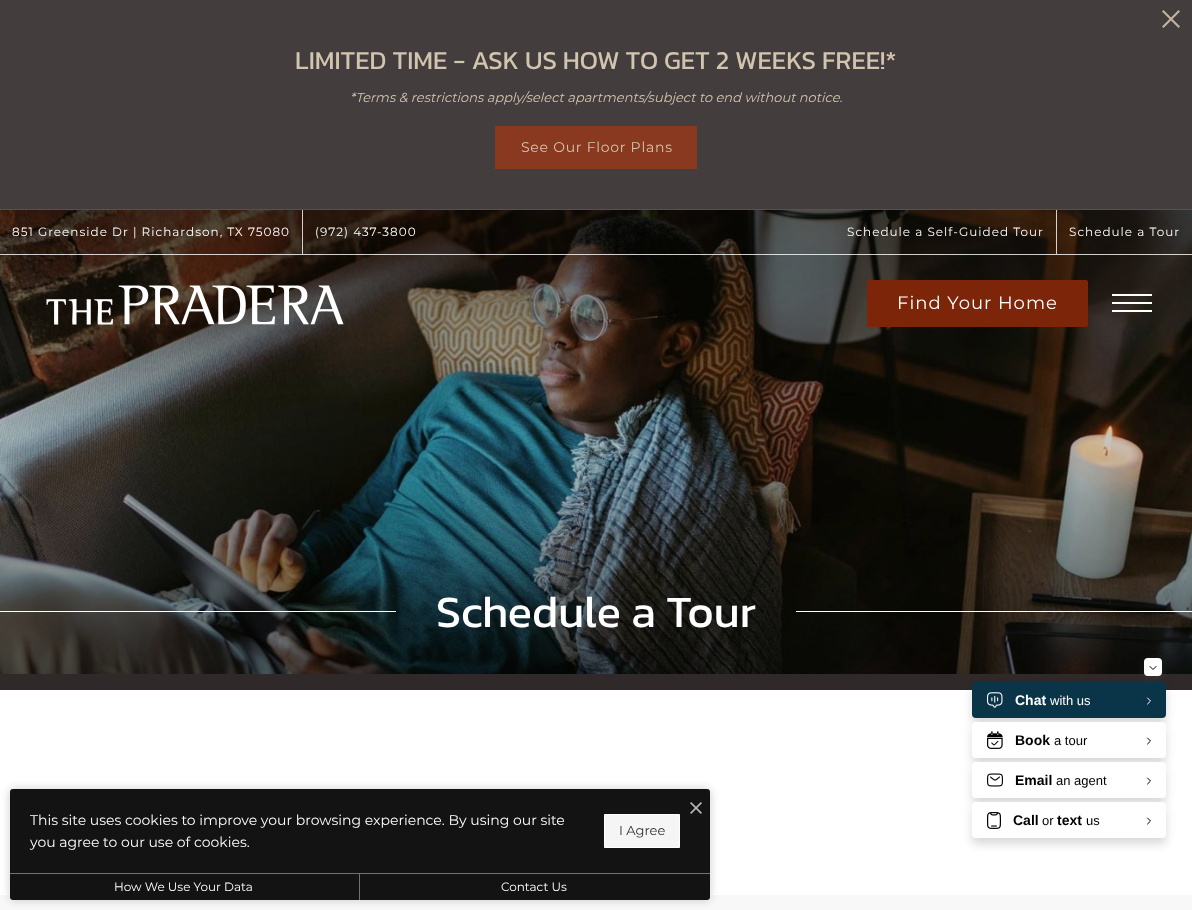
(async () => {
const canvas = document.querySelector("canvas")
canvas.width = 1192
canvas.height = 910
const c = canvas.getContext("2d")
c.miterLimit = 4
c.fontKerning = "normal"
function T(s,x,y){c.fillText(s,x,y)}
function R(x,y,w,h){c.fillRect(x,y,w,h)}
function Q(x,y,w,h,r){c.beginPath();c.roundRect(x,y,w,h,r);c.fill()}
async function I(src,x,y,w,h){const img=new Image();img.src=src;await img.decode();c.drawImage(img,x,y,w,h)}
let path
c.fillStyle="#fff"
R(0,0,1192,910)
c.fillStyle="#433d3d"
R(0,0,1192,209)
c.fillStyle="#565050"
R(0,209,1192,1)
await I("1.png",1162,10,18,18)
c.font="26px Kanit"
c.fillStyle="#d2c5af"
T("LIMITED TIME - ASK US HOW TO GET 2 WEEKS FREE!*",295,69)
c.font="italic 13px Montserrat"
T("*Terms & restrictions apply/select apartments/subject to end without notice.",350,102)
c.fillStyle="#89391f"
R(495,126,202,43)
c.letterSpacing="0.75px"
c.font="14px Montserrat"
c.fillStyle="#d2c5af"
T("See Our Floor Plans",521,152)
await I("3.png",0,210,1192,464)
c.fillStyle="#ffffffcc"
R(0,254,1192,1)
R(302,210,1,44)
c.letterSpacing="1px"
c.font="12px Montserrat"
c.fillStyle="#fff"
T("851 Greenside Dr | Richardson, TX 75080",12,236)
T("(972) 437-3800",315,236)
c.fillStyle="#ffffffcc"
R(1056,210,1,44)
c.fillStyle="#fff"
T("Schedule a Self-Guided Tour",847,236)
T("Schedule a Tour",1069,236)
await I("2.png",46,285,298,40)
c.fillStyle="#7d2509"
Q(867,280,221,47,2)
c.font="18px Montserrat"
c.fillStyle="#fff"
T("Find Your Home",897,309)
R(1112,294,40,2)
R(1112,302,40,2)
R(1112,310,40,2)
R(0,611,396,1)
c.letterSpacing="0px"
c.font="45px Kanit"
T("Schedule a Tour",436,627)
R(796,611,396,1)
c.fillStyle="#302929"
R(0,674,1192,16)
c.fillStyle="#f8f8f8"
R(0,895,1192,15)
c.fillStyle="#00000033"
c.filter="blur(5px)"
c.beginPath()
c.roundRect(10,789,700,111,3)
c.fill()
c.filter="none"
c.fillStyle="#131313"
Q(10,789,700,111,3)
await I("4.png",690,802,12,12)
c.font="14px Montserrat"
c.fillStyle="#fff"
T("This site uses cookies to improve your browsing experience. By using our site",30,825)
T("you agree to our use of cookies.",30,847)
c.fillStyle="#f5f5f5"
c.beginPath()
c.rect(604.5,814.5,75,33)
c.fill()
c.strokeStyle="#fff"
c.stroke()
c.font="13px Montserrat"
c.fillStyle="#333"
T("I Agree",619,835)
c.fillStyle="#717171"
R(10,873,700,1)
R(359,874,1,26)
c.font="12px Montserrat"
c.fillStyle="#fff"
T("How We Use Your Data",114,891)
T("Contact Us",501,891)
c.fillStyle="#00000026"
c.filter="blur(5px)"
c.beginPath()
c.roundRect(972,688,194,36,4)
c.fill()
c.filter="none"
c.fillStyle="#0a3548"
Q(972,682,194,36,4)
c.fillStyle="#63636333"
c.filter="blur(4px)"
c.beginPath()
c.roundRect(1144,660,18,18,4)
c.fill()
c.filter="none"
c.fillStyle="#fff"
Q(1144,658,18,18,4)
path = new Path2D("M1150 666.5l3 3l3-3")
c.strokeStyle="#000"
c.lineCap="round"
c.lineJoin="round"
c.stroke(path)
await I("5.png",987,692,16,16)
c.font="bold 14px Liberation Sans"
T("Chat",1015,705)
c.font="13px Liberation Sans"
T("with us",1050,705)
path = new Path2D("M1147.5 704l3-3l-3-3")
c.strokeStyle="#fff"
c.stroke(path)
c.fillStyle="#00000026"
c.filter="blur(5px)"
c.beginPath()
c.roundRect(972,728,194,36,4)
c.fill()
c.filter="none"
c.fillStyle="#fff"
Q(972,722,194,36,4)
await I("6.png",987,731,16,18)
c.font="bold 14px Liberation Sans"
c.fillStyle="#000"
T("Book",1015,745)
c.font="13px Liberation Sans"
T("a tour",1054,745)
path = new Path2D("M1147.5 744l3-3l-3-3")
c.strokeStyle="#000"
c.stroke(path)
c.fillStyle="#00000026"
c.filter="blur(5px)"
c.beginPath()
c.roundRect(972,768,194,36,4)
c.fill()
c.filter="none"
c.fillStyle="#fff"
Q(972,762,194,36,4)
await I("7.png",987,773,16,14)
c.font="bold 14px Liberation Sans"
c.fillStyle="#000"
T("Email",1015,785)
c.font="13px Liberation Sans"
T("an agent",1056,785)
path = new Path2D("M1147.5 784l3-3l-3-3")
c.stroke(path)
c.fillStyle="#00000026"
c.filter="blur(5px)"
c.beginPath()
c.roundRect(972,808,194,36,4)
c.fill()
c.filter="none"
c.fillStyle="#fff"
Q(972,802,194,36,4)
await I("8.png",987,812,14,17)
c.font="bold 14px Liberation Sans"
c.fillStyle="#000"
T("Call",1013,825)
c.font="13px Liberation Sans"
T("or",1042,825)
c.font="bold 14px Liberation Sans"
T("text",1057,825)
c.font="13px Liberation Sans"
T("us",1086,825)
path = new Path2D("M1147.5 824l3-3l-3-3")
c.stroke(path)
})()
